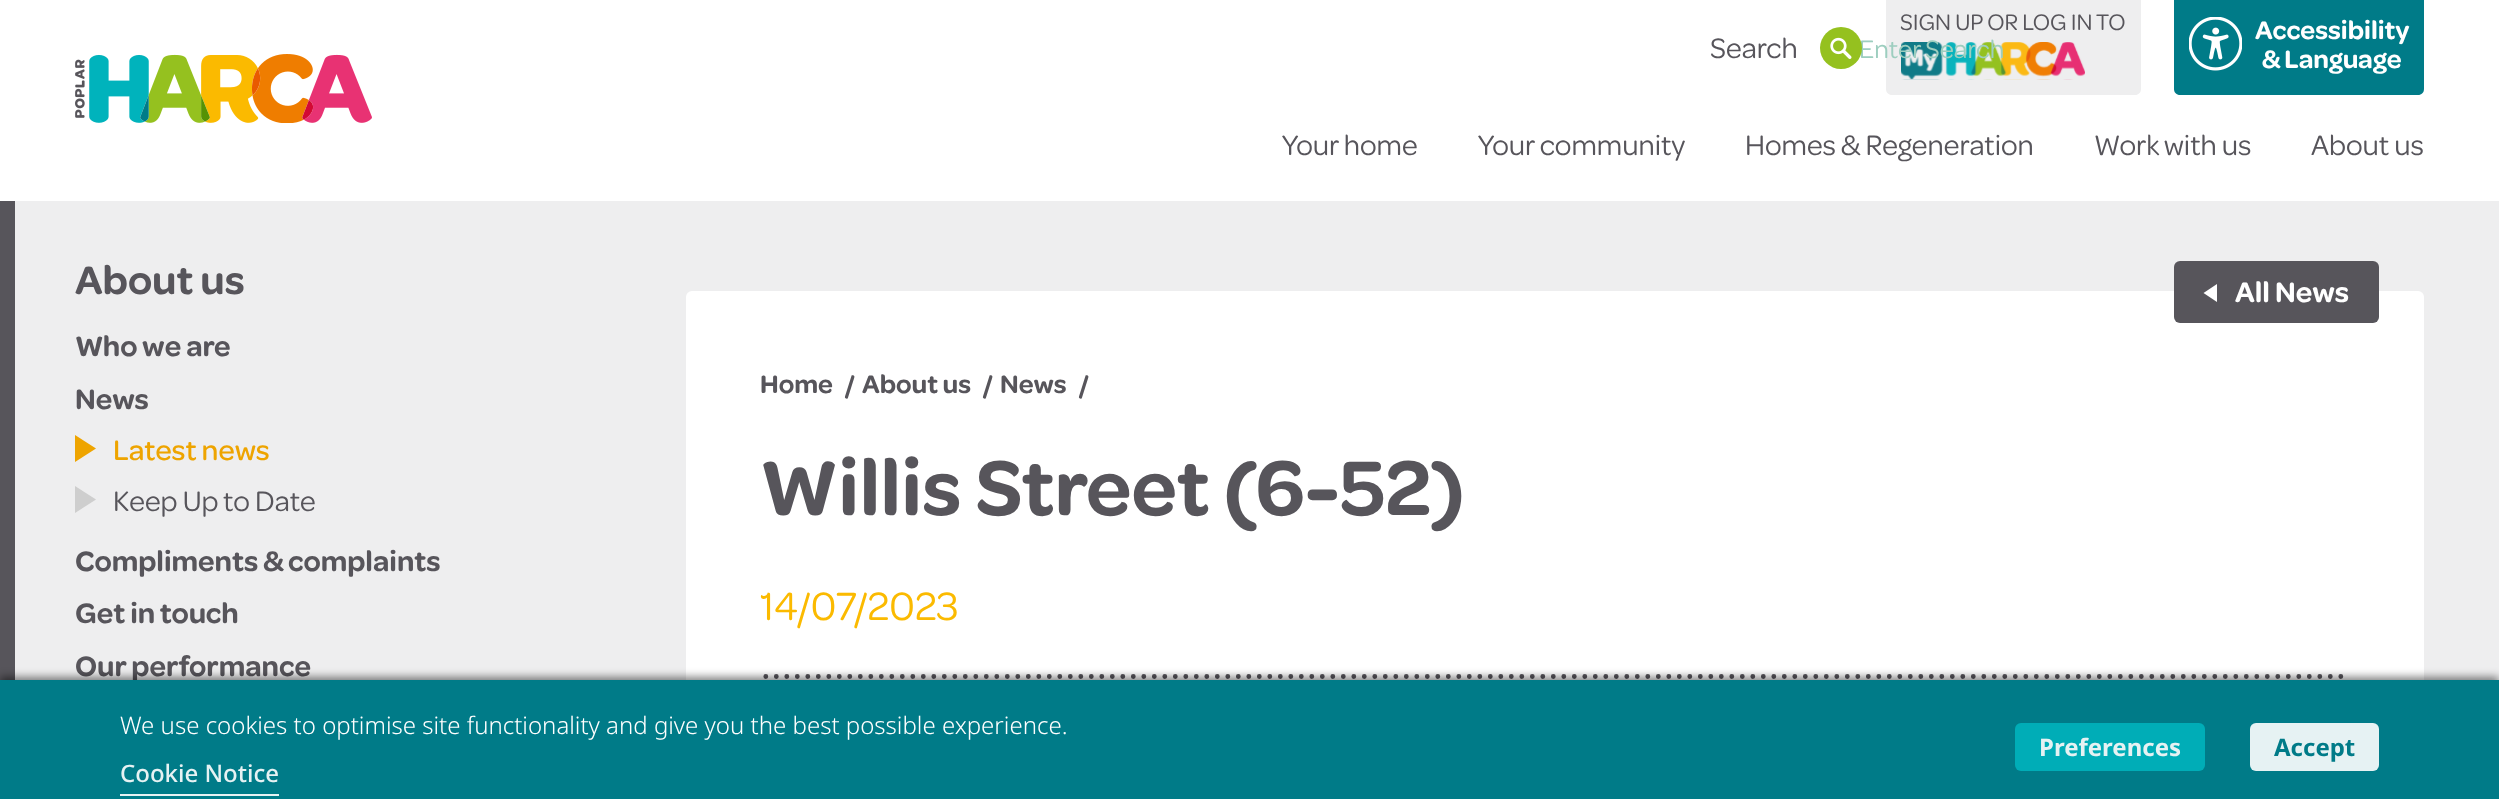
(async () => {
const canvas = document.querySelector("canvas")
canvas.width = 2499
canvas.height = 799
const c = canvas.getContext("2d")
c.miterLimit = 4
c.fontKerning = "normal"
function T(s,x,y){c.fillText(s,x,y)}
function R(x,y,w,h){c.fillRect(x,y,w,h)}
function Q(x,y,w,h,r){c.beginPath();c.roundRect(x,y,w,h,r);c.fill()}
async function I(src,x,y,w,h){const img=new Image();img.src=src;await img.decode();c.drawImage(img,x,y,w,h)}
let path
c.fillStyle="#eeeeef"
R(0,0,2499,799)
c.fillStyle="#fff"
R(0,0,2499,201)
await I("1.png",75,54,297,69)
c.fillStyle="#eeeeef"
path = new Path2D("M1886-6h255v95c0 3.5-2.5 6-6 6h-243c-3.5 0-6-2.5-6-6z")
c.fill(path)
await I("3.png",1901,42,184,38)
c.font="27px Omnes"
c.fillStyle="#9dcebf"
T("Enter Search",1859,58)
c.fillStyle="#95c11f"
c.beginPath()
c.arc(1841,48,21,0,7)
c.fill()
await I("2.png",1830,37,22,22)
c.font="30px Omnes"
c.fillStyle="#57555b"
T("Search",1710,58)
c.font="24px Omnes"
T("SIGN UP OR LOG IN TO",1900,30)
c.fillStyle="#007b88"
path = new Path2D("M2174-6h250v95c0 3.5-2.5 6-6 6h-238c-3.5 0-6-2.5-6-6z")
c.fill(path)
await I("4.png",2189,17,53,54)
c.font="600 27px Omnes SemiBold"
c.fillStyle="#fff"
T("Accessibility",2255,39)
T("& Language",2262,68)
c.font="30px Omnes"
c.fillStyle="#57555b"
T("Your home",1282,155)
T("Your community",1478,155)
T("Homes & Regeneration",1745,155)
T("Work with us",2094,155)
T("About us",2311,155)
R(0,201,15,479)
c.font="600 42px Omnes SemiBold"
T("About us",75,294)
c.font="600 30px Omnes SemiBold"
T("Who we are",75,356)
T("News",75,409)
c.fillStyle="#eea400"
path = new Path2D("M75 462v-27l21 13.5z")
c.fill(path)
c.font="500 30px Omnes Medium"
T("Latest news",113,460)
c.fillStyle="#cecece"
path = new Path2D("M75 513v-27l21 13.5z")
c.fill(path)
c.font="30px Omnes"
c.fillStyle="#57555b"
T("Keep Up to Date",113,511)
c.font="600 30px Omnes SemiBold"
T("Compliments & complaints",75,571)
T("Get in touch",75,623)
T("Our performance",75,676)
c.fillStyle="#fff"
Q(686,291,1738,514,6)
c.fillStyle="#57555b"
Q(2174,261,205,62,6)
c.fillStyle="#fff"
path = new Path2D("M2217 284v18l-13.5-9z")
c.fill(path)
T("All News",2235,302)
c.font="600 27px Omnes SemiBold"
c.fillStyle="#57555b"
T("Home",760,393)
T("/",845,393)
T("About us",862,393)
T("/",983,393)
T("News",1000,393)
T("/",1079,393)
c.font="600 82.5px Omnes SemiBold"
T("Willis Street (6-52)",760,515)
c.font="42px Omnes"
c.fillStyle="#fbba00"
T("14/07/2023",760,620)
path = new Path2D("M765.8 676.5h1575.3")
c.strokeStyle="#57555b"
c.lineWidth=4.8
c.lineCap="round"
c.setLineDash([0,10.5])
c.stroke(path)
c.fillStyle="#00000080"
c.filter="blur(4px)"
c.beginPath()
c.rect(0,677,2499,120)
c.fill()
c.filter="none"
c.fillStyle="#007b88"
R(0,680,2499,119)
c.font="300 24px Noto Sans"
c.fillStyle="#fff"
T("We use cookies to optimise site functionality and give you the best possible experience.",120,734)
c.font="500 24px Noto Sans"
c.fillStyle="#e6f2f3"
T("Cookie Notice",120,782)
R(120,794,159,2)
c.fillStyle="#00adb7"
Q(2015,723,190,48,6)
c.font="bold 24px Noto Sans"
c.fillStyle="#e6f2f3"
T("Preferences",2039,756)
Q(2250,723,129,48,6)
c.fillStyle="#007b88"
T("Accept",2274,756)
})()
